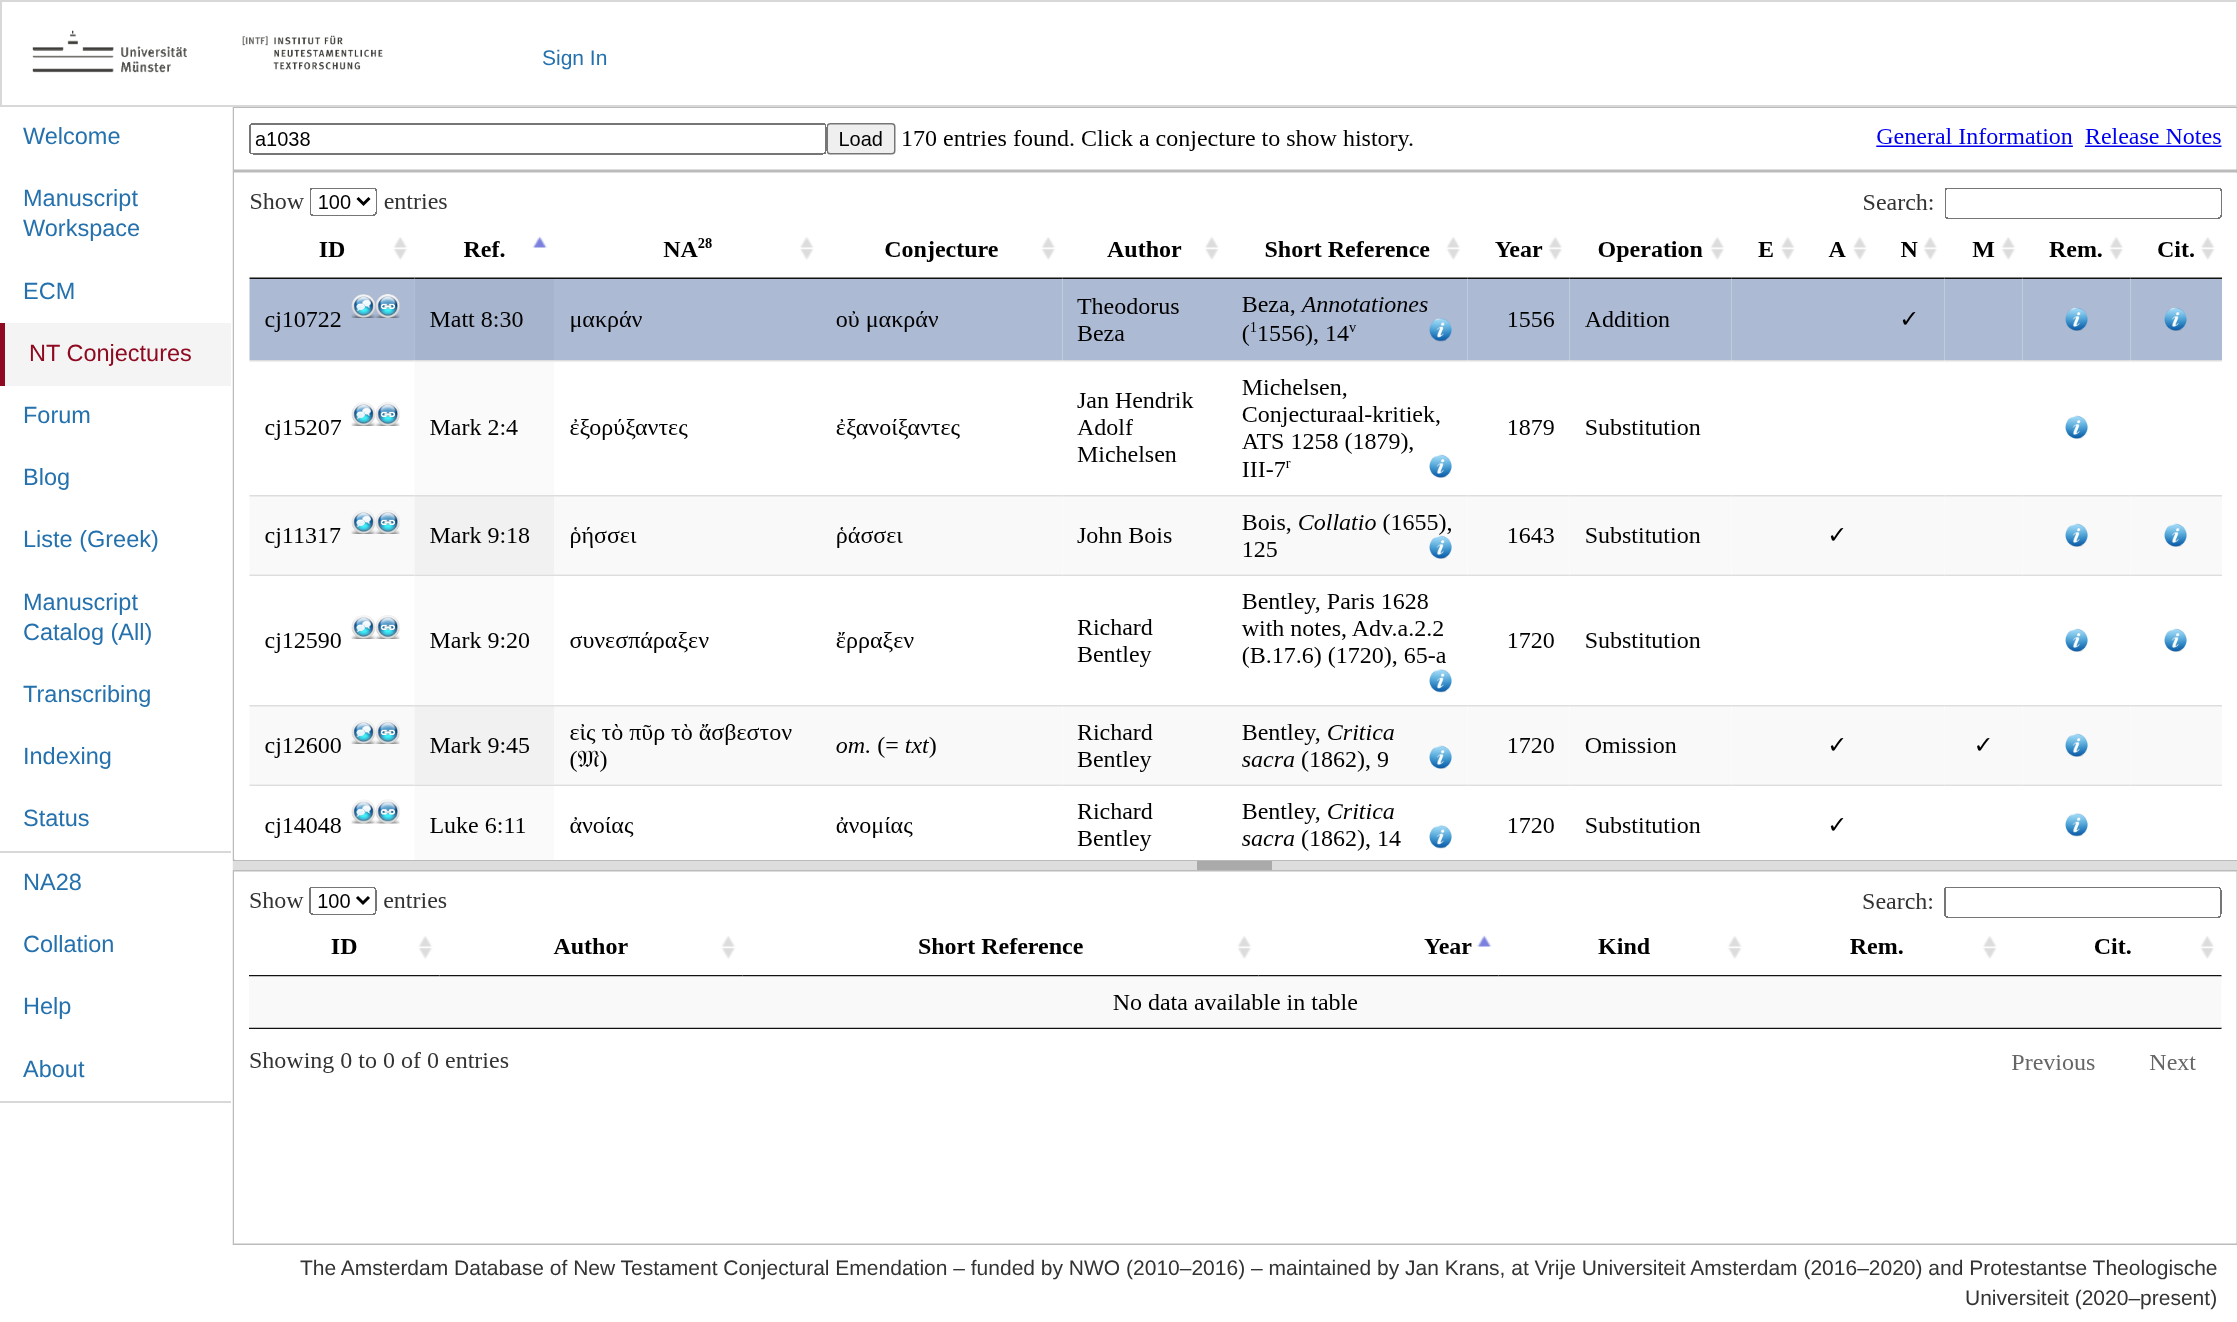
(async () => {
const canvas = document.querySelector("canvas")
canvas.width = 2237
canvas.height = 1322
const c = canvas.getContext("2d")
c.miterLimit = 4
c.fontKerning = "normal"
function T(s,x,y){c.fillText(s,x,y)}
function R(x,y,w,h){c.fillRect(x,y,w,h)}
async function I(src,x,y,w,h){const img=new Image();img.src=src;await img.decode();c.drawImage(img,x,y,w,h)}
c.fillStyle="#fff"
R(0,0,2237,1322)
c.strokeStyle="#d9d8d8"
c.lineWidth=2
c.strokeRect(1,1,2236,105)
await I("1.png",32,30,351,43)
c.font="21px Liberation Sans"
c.fillStyle="#2571ad"
T("Sign In",542,65)
c.fillStyle="#d9d8d8"
R(0,1101,231,2)
c.font="23.5px Liberation Sans"
c.fillStyle="#2571ad"
T("Welcome",23,144)
T("Manuscript",23,206)
T("Workspace",23,236)
T("ECM",23,299)
c.fillStyle="#8f0920"
R(0,323,5,63)
c.fillStyle="#f4f4f4"
R(5,323,226,63)
c.fillStyle="#8f0920"
T("NT Conjectures",29,361)
c.fillStyle="#2571ad"
T("Forum",23,423)
T("Blog",23,485)
T("Liste (Greek)",23,547)
T("Manuscript",23,610)
T("Catalog (All)",23,640)
T("Transcribing",23,702)
T("Indexing",23,764)
c.fillStyle="#d9d8d8"
R(0,851,231,2)
c.fillStyle="#2571ad"
T("Status",23,826)
T("NA28",23,890)
T("Collation",23,952)
T("Help",23,1014)
T("About",23,1077)
await I("2.png",232,107,2005,1138)
c.font="21px Liberation Sans"
c.fillStyle="#333"
T("The Amsterdam Database of New Testament Conjectural Emendation – funded by NWO (2010–2016) – maintained by Jan Krans, at Vrije Universiteit Amsterdam (2016–2020) and Protestantse Theologische",300,1275)
T("Universiteit (2020–present)",1965,1305)
})()
